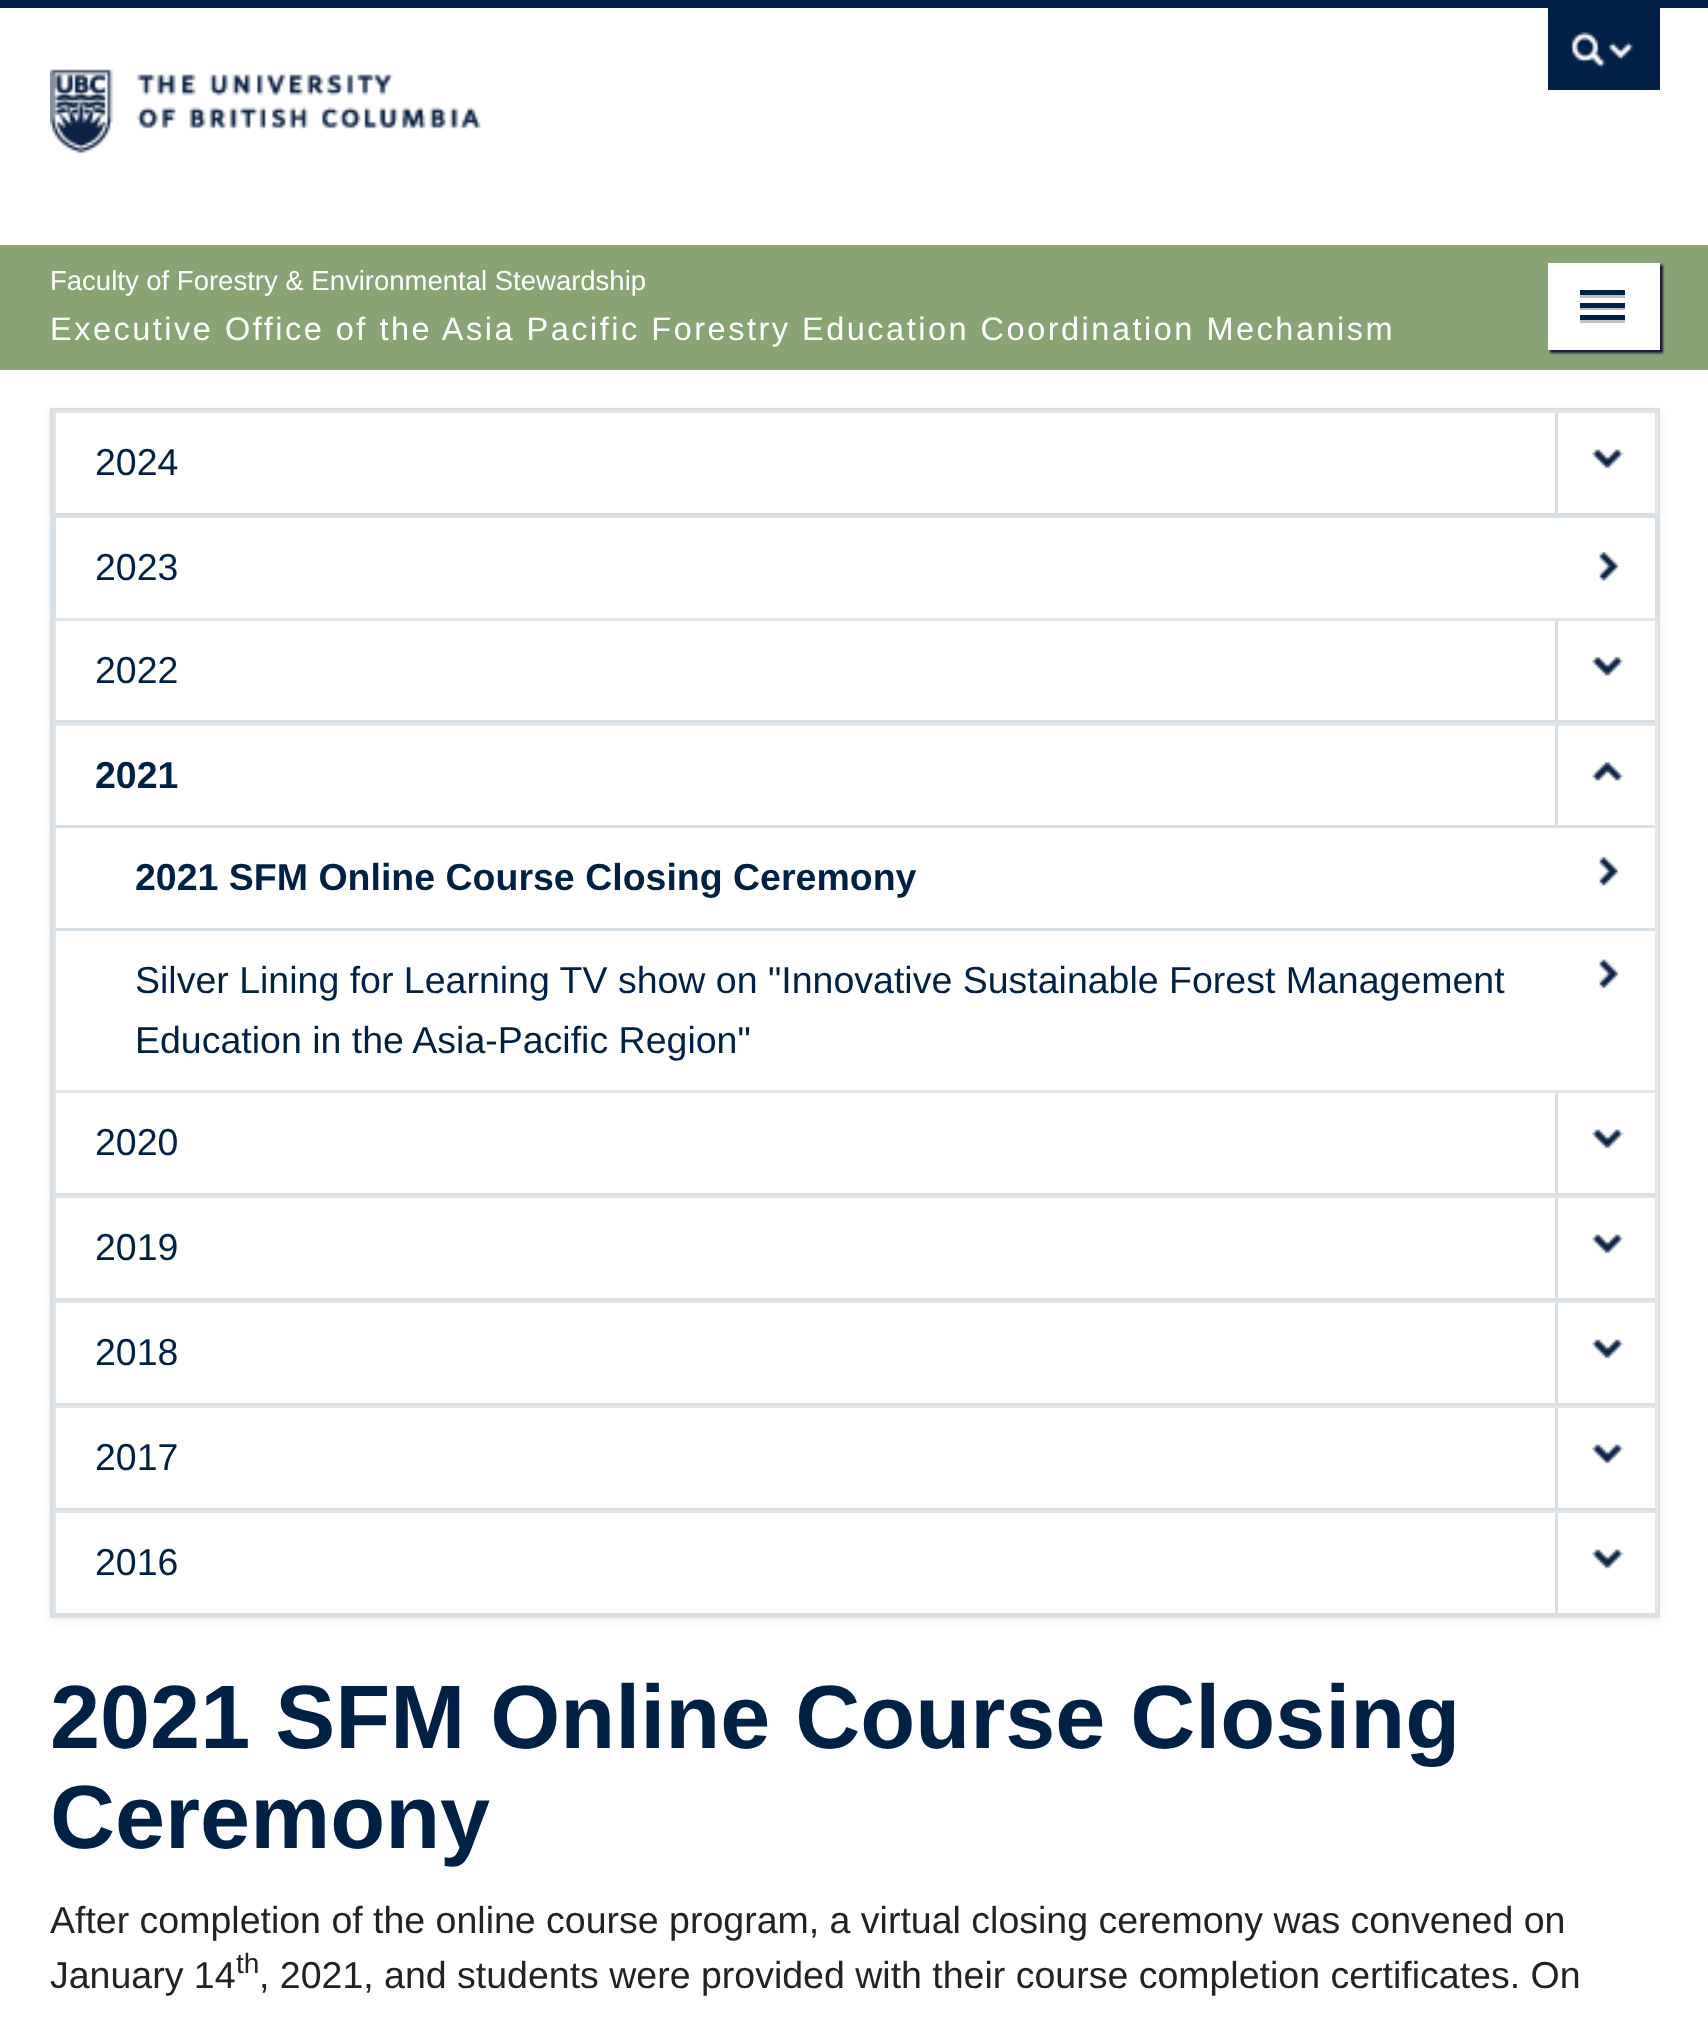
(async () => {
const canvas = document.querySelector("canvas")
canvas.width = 1708
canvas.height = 2020
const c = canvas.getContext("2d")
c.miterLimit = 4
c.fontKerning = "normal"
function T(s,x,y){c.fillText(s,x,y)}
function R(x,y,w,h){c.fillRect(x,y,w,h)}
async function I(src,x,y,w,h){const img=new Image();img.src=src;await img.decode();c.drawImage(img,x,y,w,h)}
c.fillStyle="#fff"
R(0,0,1708,2020)
c.fillStyle="#002145"
R(0,0,1708,8)
await I("1.png",50,69,431,85)
R(1548,8,112,82)
await I("2.png",1569,31,65,37)
c.fillStyle="#88a374"
R(0,245,1708,125)
c.font="27.5px Liberation Sans"
c.fillStyle="#fff"
T("Faculty of Forestry & Environmental Stewardship",50,290)
c.letterSpacing="2.5px"
c.font="32.5px Liberation Sans"
T("Executive Office of the Asia Pacific Forestry Education Coordination Mechanism",50,340)
c.fillStyle="#191938"
c.filter="blur(1px)"
c.beginPath()
c.rect(1550,265,113,88)
c.fill()
c.filter="none"
c.fillStyle="#fff"
R(1548,263,112,87)
c.fillStyle="#bfbfbf"
R(1580,295,45,3)
c.fillStyle="#002145"
R(1580,290,45,5)
c.fillStyle="#bfbfbf"
R(1580,308,45,2)
c.fillStyle="#002145"
R(1580,303,45,5)
c.fillStyle="#bfbfbf"
R(1580,320,45,3)
c.fillStyle="#002145"
R(1580,315,45,5)
c.fillStyle="#00000012"
c.filter="blur(5px)"
c.beginPath()
c.rect(50,410,1610,1210)
c.fill()
c.filter="none"
c.fillStyle="#fff"
R(56,413,1599,1200)
c.strokeStyle="#d7e0e7"
c.lineWidth=3
c.strokeRect(51.5,409.5,1607,1207)
c.fillStyle="#e5e5e5"
R(53,410,1605,3)
R(1655,410,3,105)
R(53,410,3,105)
c.fillStyle="#d7e0e7"
R(53,516,1605,2)
R(53,515,3,103)
R(55,513,1600,3)
c.letterSpacing="0px"
c.font="37.5px Liberation Sans"
c.fillStyle="#002145"
T("2024",95,475)
c.fillStyle="#d7e0e7"
R(1555,413,3,100)
await I("3.png",1591,449,33,20)
R(1655,515,2,103)
c.fillStyle="#002145"
T("2023",95,580)
await I("4.png",1599,551,20,30)
c.fillStyle="#e5e5e5"
R(53,618,1605,3)
R(1655,618,3,105)
R(53,618,3,105)
c.fillStyle="#d7e0e7"
R(55,720,1600,3)
c.fillStyle="#002145"
T("2022",95,683)
c.fillStyle="#d7e0e7"
R(1555,620,3,100)
await I("5.png",1591,656,33,20)
c.fillStyle="#e5e5e5"
R(53,723,1605,3)
R(1655,723,3,367)
R(53,723,3,367)
c.fillStyle="#d7e0e7"
R(55,825,1600,3)
c.font="bold 37.5px Liberation Sans"
c.fillStyle="#002145"
T("2021",95,788)
c.fillStyle="#d7e0e7"
R(1555,725,3,100)
await I("6.png",1591,761,33,20)
R(55,928,1600,3)
c.fillStyle="#002145"
T("2021 SFM Online Course Closing Ceremony",135,890)
await I("4.png",1599,856,20,30)
c.font="37.5px Liberation Sans"
T("Silver Lining for Learning TV show on \"Innovative Sustainable Forest Management",135,993)
await I("7.png",1599,959,20,30)
T("Education in the Asia-Pacific Region\"",135,1053)
c.fillStyle="#e5e5e5"
R(53,1090,1605,3)
R(1655,1090,3,105)
R(53,1090,3,105)
R(53,1196,1605,2)
R(53,1195,3,105)
c.fillStyle="#d7e0e7"
R(55,1193,1600,3)
c.fillStyle="#002145"
T("2020",95,1155)
c.fillStyle="#d7e0e7"
R(1555,1093,3,100)
await I("3.png",1591,1129,33,20)
c.fillStyle="#e5e5e5"
R(1655,1195,3,105)
R(53,1301,1605,2)
R(53,1300,3,105)
c.fillStyle="#d7e0e7"
R(55,1298,1600,3)
c.fillStyle="#002145"
T("2019",95,1260)
c.fillStyle="#d7e0e7"
R(1555,1198,3,100)
await I("3.png",1591,1234,33,20)
c.fillStyle="#e5e5e5"
R(1655,1300,3,105)
R(53,1406,1605,2)
R(53,1405,3,105)
c.fillStyle="#d7e0e7"
R(55,1403,1600,3)
c.fillStyle="#002145"
T("2018",95,1365)
c.fillStyle="#d7e0e7"
R(1555,1303,3,100)
await I("3.png",1591,1339,33,20)
c.fillStyle="#e5e5e5"
R(1655,1405,3,105)
R(53,1511,1605,2)
R(53,1510,3,105)
c.fillStyle="#d7e0e7"
R(55,1508,1600,3)
c.fillStyle="#002145"
T("2017",95,1470)
c.fillStyle="#d7e0e7"
R(1555,1408,3,100)
await I("3.png",1591,1444,33,20)
c.fillStyle="#e5e5e5"
R(1655,1510,3,105)
c.fillStyle="#d7e0e7"
R(55,1613,1600,2)
c.fillStyle="#002145"
T("2016",95,1575)
c.fillStyle="#d7e0e7"
R(1555,1513,3,100)
await I("3.png",1591,1549,33,20)
c.font="bold 90px Liberation Sans"
c.fillStyle="#002145"
T("2021 SFM Online Course Closing",50,1748)
T("Ceremony",50,1848)
c.font="37.5px Liberation Sans"
c.fillStyle="#222"
T("After completion of the online course program, a virtual closing ceremony was convened on",50,1933)
T("January 14",50,1988)
c.font="28px Liberation Sans"
T("th",236,1973)
c.font="37.5px Liberation Sans"
T(", 2021, and students were provided with their course completion certificates. On",259,1988)
})()
